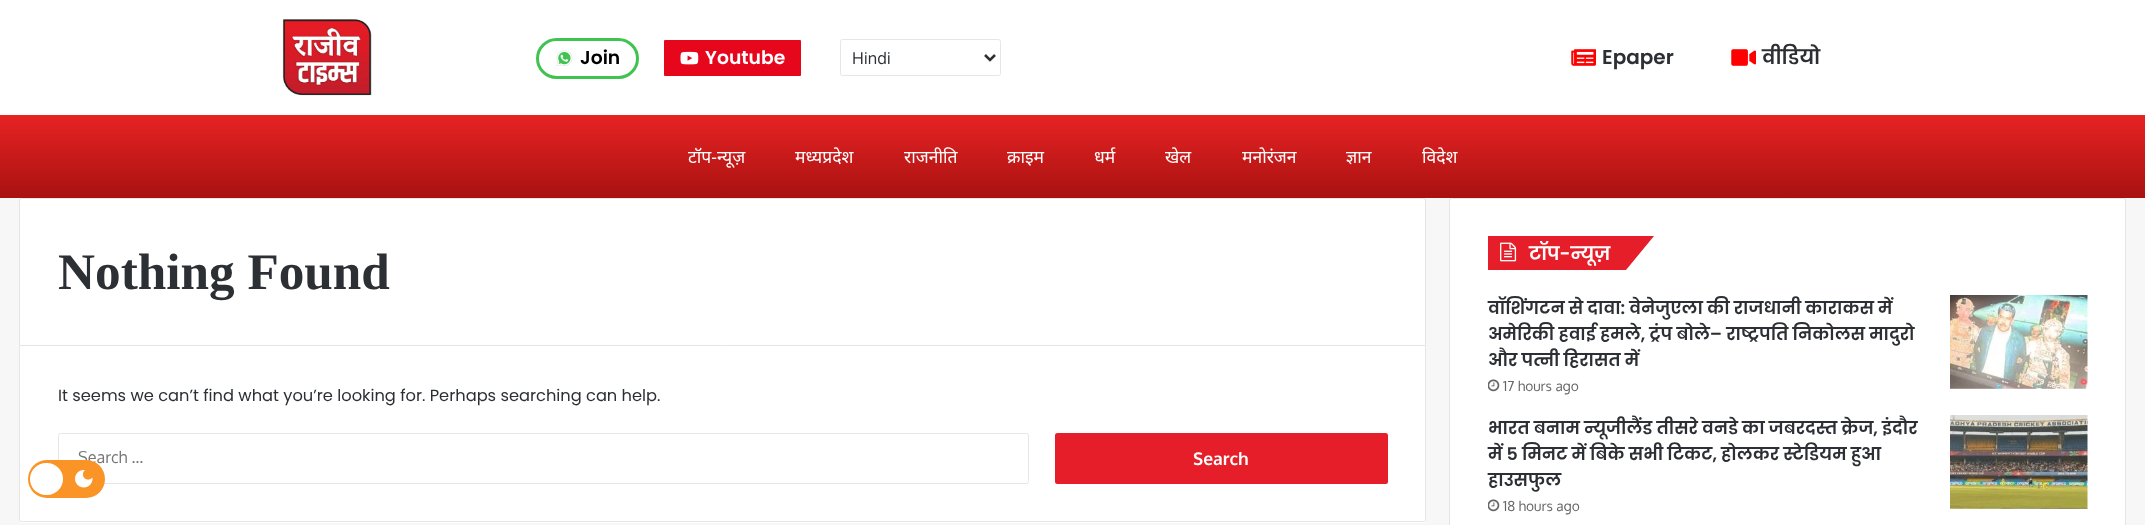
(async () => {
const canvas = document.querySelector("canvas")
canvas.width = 2145
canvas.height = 525
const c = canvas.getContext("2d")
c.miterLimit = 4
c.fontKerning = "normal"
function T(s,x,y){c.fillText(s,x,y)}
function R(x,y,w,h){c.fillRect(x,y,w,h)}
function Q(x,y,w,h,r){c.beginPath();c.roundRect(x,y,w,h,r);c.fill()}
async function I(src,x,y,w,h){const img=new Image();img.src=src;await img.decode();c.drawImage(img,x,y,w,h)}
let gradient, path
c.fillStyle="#f7f7f7"
R(0,0,2145,525)
c.fillStyle="#fff"
R(0,0,2145,115)
await I("1.png",282,19,90,77)
c.beginPath()
c.roundRect(537.5,39.5,100,38,19)
c.strokeStyle="#40c351"
c.lineWidth=3
c.stroke()
await I("2.png",556,50,17,16)
c.font="600 18.75px Poppins"
c.fillStyle="#000"
T("Join",580,64)
c.fillStyle="#e7071c"
Q(664,40,137,36,1)
await I("3.png",680,51,19,14)
c.fillStyle="#fff"
T("Youtube",705,64)
c.beginPath()
c.roundRect(840.5,39.5,160,36,2)
c.strokeStyle="#e6e6e6"
c.lineWidth=1
c.stroke()
path = new Path2D("M985 55l5 5l5-5")
c.strokeStyle="#2c2f34"
c.lineWidth=2.5
c.stroke(path)
c.font="16.25px Oxygen"
c.fillStyle="#2c2f34"
T("Hindi",852,64)
await I("4.png",1571,49,25,17)
c.font="600 20px Poppins"
T("Epaper",1602,64)
await I("5.png",1731,49,25,17)
T("वीडियो",1762,64)
gradient = c.createLinearGradient(1073,115,1073,198)
gradient.addColorStop(0,"#e72323")
gradient.addColorStop(1,"#a91111")
c.fillStyle = gradient
R(0,115,2145,83)
c.font="17.5px Noto Sans"
c.fillStyle="#fff"
T("टॉप-न्यूज़",688,163)
T("मध्यप्रदेश",795,163)
T("राजनीति",904,163)
T("क्राइम",1007,163)
T("धर्म",1094,163)
T("खेल",1165,163)
T("मनोरंजन",1242,163)
T("ज्ञान",1346,163)
T("विदेश",1422,163)
c.beginPath()
c.roundRect(19.5,198.5,1406,147,[2,2,0,0])
c.fill()
c.strokeStyle="#e5e5e5"
c.lineWidth=1
c.stroke()
c.font="bold 51.25px Liberation Serif"
c.fillStyle="#2c2f34"
T("Nothing Found",58,289)
c.fillStyle="#fff"
c.beginPath()
c.roundRect(19,346,1407,177,[0,0,2.5,2.5])
c.fill()
c.fillStyle="#e6e6e6"
R(1425,346,1,175)
R(20,521,1405,1)
R(19,346,1,175)
c.font="16.25px Poppins"
c.fillStyle="#2c2f34"
T("It seems we can’t find what you’re looking for. Perhaps searching can help.",58,401)
c.beginPath()
c.roundRect(58.5,433.5,970,50,2)
c.strokeStyle="#e6e6e6"
c.stroke()
c.font="16.25px Oxygen"
c.fillStyle="#767676"
T("Search …",78,463)
c.fillStyle="#e61e29"
Q(1055,433,333,51,2.5)
c.font="bold 17.5px Oxygen"
c.fillStyle="#fff"
T("Search",1193,465)
c.beginPath()
c.roundRect(1449.5,198.5,676,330,2)
c.fill()
c.strokeStyle="#e5e5e5"
c.stroke()
c.fillStyle="#e61e29"
R(1488,236,72,34)
path = new Path2D("M1560 236h94l-28 34h-95z")
c.fill(path)
await I("6.png",1500,242,17,20)
c.font="600 18.75px Poppins"
c.fillStyle="#fff"
T("टॉप-न्यूज़",1529,260)
c.font="600 17.5px Poppins"
c.fillStyle="#2c2f34"
T("वॉशिंगटन से दावा: वेनेजुएला की राजधानी काराकस में",1488,314)
T("अमेरिकी हवाई हमले, ट्रंप बोले– राष्ट्रपति निकोलस मादुरो",1488,340)
T("और पत्नी हिरासत में",1488,366)
await I("7.png",1488,379,12,13)
c.font="13.75px Oxygen"
c.fillStyle="#666"
T("17 hours ago",1503,391)
await I("8.png",1950,295,138,94)
c.font="600 17.5px Poppins"
c.fillStyle="#2c2f34"
T("भारत बनाम न्यूजीलैंड तीसरे वनडे का जबरदस्त क्रेज, इंदौर",1488,434)
T("में 5 मिनट में बिके सभी टिकट, होलकर स्टेडियम हुआ",1488,460)
T("हाउसफुल",1488,486)
await I("7.png",1488,499,12,13)
c.font="13.75px Oxygen"
c.fillStyle="#666"
T("18 hours ago",1503,511)
await I("9.png",1950,415,138,94)
c.fillStyle="#fb9426"
Q(28,460,77,38,19)
c.fillStyle="#fff"
Q(30,463,33,32,16)
await I("10.png",75,470,18,18)
})()
